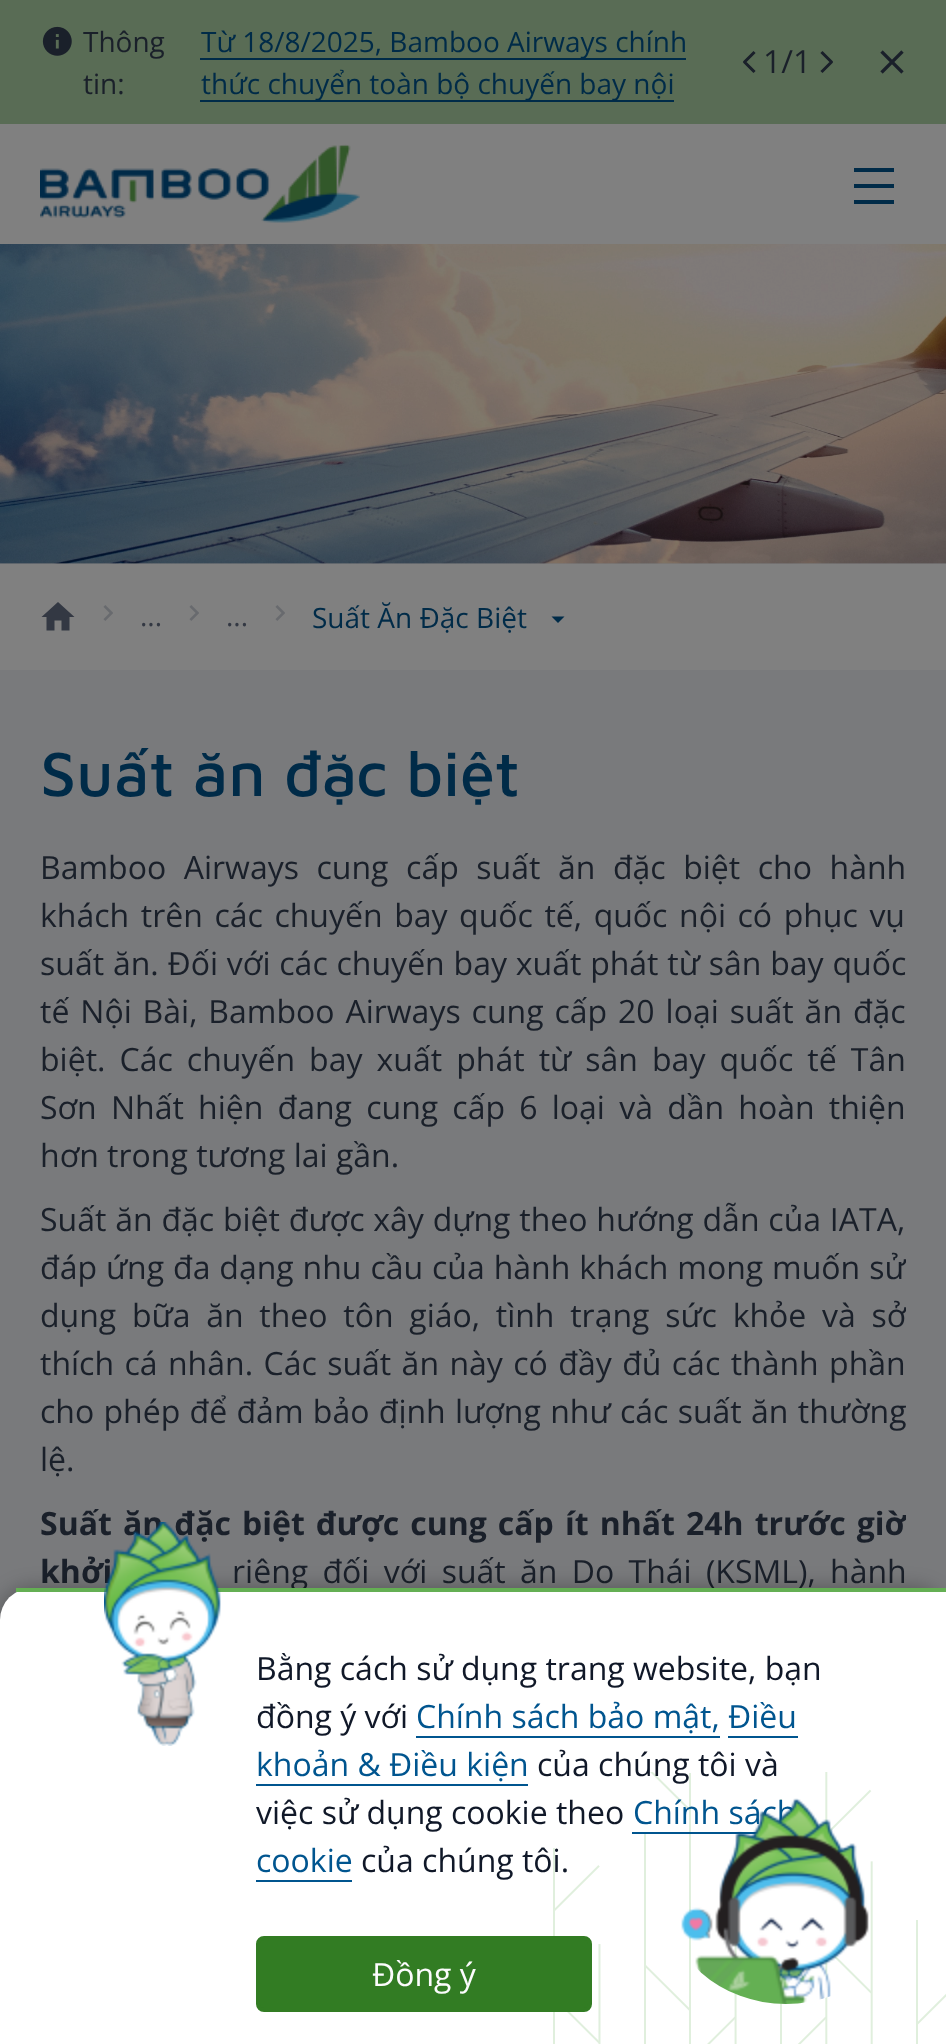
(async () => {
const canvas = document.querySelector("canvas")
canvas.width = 946
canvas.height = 2044
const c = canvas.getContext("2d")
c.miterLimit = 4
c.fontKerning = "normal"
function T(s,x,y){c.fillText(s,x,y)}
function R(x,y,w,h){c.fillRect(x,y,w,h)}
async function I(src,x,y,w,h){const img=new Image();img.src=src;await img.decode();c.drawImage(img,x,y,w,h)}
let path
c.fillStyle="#808080"
R(0,0,946,2044)
c.fillStyle="#596c55"
R(0,0,946,124)
await I("1.png",42,26,30,30)
c.font="28px Open Sans"
c.fillStyle="#1a202a"
T("Thông",83,52)
T("tin:",83,94)
c.fillStyle="#002b48"
R(200,58,486,2)
T("Từ 18/8/2025, Bamboo Airways chính",201,52)
R(200,100,474,2)
T("thức chuyển toàn bộ chuyến bay nội",201,94)
path = new Path2D("M753.5 71l-9-9l9-9")
c.strokeStyle="#1a202a"
c.lineWidth=3
c.lineCap="square"
c.lineJoin="round"
c.stroke(path)
c.font="32px Open Sans"
c.fillStyle="#1a202a"
T("1/1",763,73)
path = new Path2D("M822.5 71l9-9l-9-9")
c.stroke(path)
await I("2.png",880,50,24,24)
await I("3.png",40,144,320,79)
c.save()
c.beginPath()
c.rect(854,166,40,40)
c.clip()
path = new Path2D("M852 170h44m-44 16h44m-44 16h44")
c.strokeStyle="#002b48"
c.lineWidth=4
c.lineCap="round"
c.lineJoin="miter"
c.stroke(path)
c.restore()
c.fillStyle="#797a7c"
R(0,563,946,1057)
await I("4.png",0,244,946,320)
c.fillStyle="#808080"
R(0,564,946,106)
c.fillStyle="#333843"
path = new Path2D("M54.5 630.5v-10h7v10h8v-13.5h5l-16.5-15l-16.5 15h5v13.5z")
c.fill(path)
await I("5.png",103,605,10,16)
await I("5.png",189,605,10,16)
await I("5.png",275,605,10,16)
c.font="28px Open Sans"
c.fillStyle="#002b48"
T("Suất Ăn Đặc Biệt",312,628)
path = new Path2D("M551.5 616.5l6.5 6.5l6.5-6.5z")
c.fill(path)
c.fillStyle="#333843"
T("...",140,626)
T("...",226,626)
c.font="500 64px Maven Pro"
c.fillStyle="#002b48"
T("Suất ăn đặc biệt",40,796)
c.wordSpacing="9.25px"
c.font="32px Open Sans"
c.fillStyle="#1a202a"
T("Bamboo Airways cung cấp suất ăn đặc biệt cho hành",40,879)
c.wordSpacing="3.25px"
T("khách trên các chuyến bay quốc tế, quốc nội có phục vụ",40,927)
c.wordSpacing="0.5px"
T("suất ăn. Đối với các chuyến bay xuất phát từ sân bay quốc",40,975)
c.wordSpacing="2.6px"
T("tế Nội Bài, Bamboo Airways cung cấp 20 loại suất ăn đặc",40,1023)
c.wordSpacing="5.75px"
T("biệt. Các chuyến bay xuất phát từ sân bay quốc tế Tân",40,1071)
c.wordSpacing="5.9px"
T("Sơn Nhất hiện đang cung cấp 6 loại và dần hoàn thiện",40,1119)
c.wordSpacing="0px"
T("hơn trong tương lai gần.",40,1167)
c.wordSpacing="0.5px"
T("Suất ăn đặc biệt được xây dựng theo hướng dẫn của IATA,",40,1231)
c.save()
c.beginPath()
c.rect(40,842,866,872)
c.clip()
c.wordSpacing="0.6px"
T("đáp ứng đa dạng nhu cầu của hành khách mong muốn sử",40,1279)
c.wordSpacing="7.4px"
T("dụng bữa ăn theo tôn giáo, tình trạng sức khỏe và sở",40,1327)
c.restore()
c.wordSpacing="2.1px"
T("thích cá nhân. Các suất ăn này có đầy đủ các thành phần",40,1375)
c.wordSpacing="1px"
T("cho phép để đảm bảo định lượng như các suất ăn thường",40,1423)
c.wordSpacing="0px"
T("lệ.",40,1471)
c.save()
c.beginPath()
c.rect(40,842,866,872)
c.clip()
c.wordSpacing="2.75px"
c.font="bold 32px Open Sans"
T("Suất ăn đặc biệt được cung cấp ít nhất 24h trước giờ",40,1535)
c.restore()
c.wordSpacing="6px"
c.font="bold 32px Open Sans"
T("khởi",40,1583)
c.font="32px Open Sans"
T("riêng đối với suất ăn Do Thái (KSML), hành",232,1583)
c.fillStyle="#0000004d"
c.filter="blur(10px)"
c.beginPath()
c.roundRect(0,1588,946,456,32)
c.fill()
c.filter="none"
c.fillStyle="#fff"
c.beginPath()
c.roundRect(0,1588,946,456,[32,0,0,0])
c.fill()
await I("6.png",553,1772,393,272)
c.fillStyle="#64af53"
R(16,1588,930,4)
await I("7.png",104,1522,117,224)
c.wordSpacing="0px"
c.fillStyle="#101828"
T("Bằng cách sử dụng trang website, bạn",256,1680)
T("đồng ý với",256,1728)
c.fillStyle="#00558f"
T("Chính sách bảo mật, Điều",416,1728)
R(416,1736,304,2)
T("khoản & Điều kiện",256,1776)
R(728,1736,70,2)
R(256,1784,272,2)
c.fillStyle="#101828"
T("của chúng tôi và",537,1776)
T("việc sử dụng cookie theo",256,1824)
c.fillStyle="#00558f"
T("Chính sách",633,1824)
R(632,1832,126,2)
T("cookie",256,1872)
R(256,1880,96,2)
c.fillStyle="#101828"
T("của chúng tôi.",361,1872)
c.fillStyle="#327c23"
c.beginPath()
c.roundRect(258,1938,332,72,6)
c.fill()
c.strokeStyle="#327c23"
c.lineWidth=4
c.lineJoin="miter"
c.stroke()
c.fillStyle="#fcfcfd"
T("Đồng ý",372,1986)
await I("8.png",681,1798,188,206)
})()
